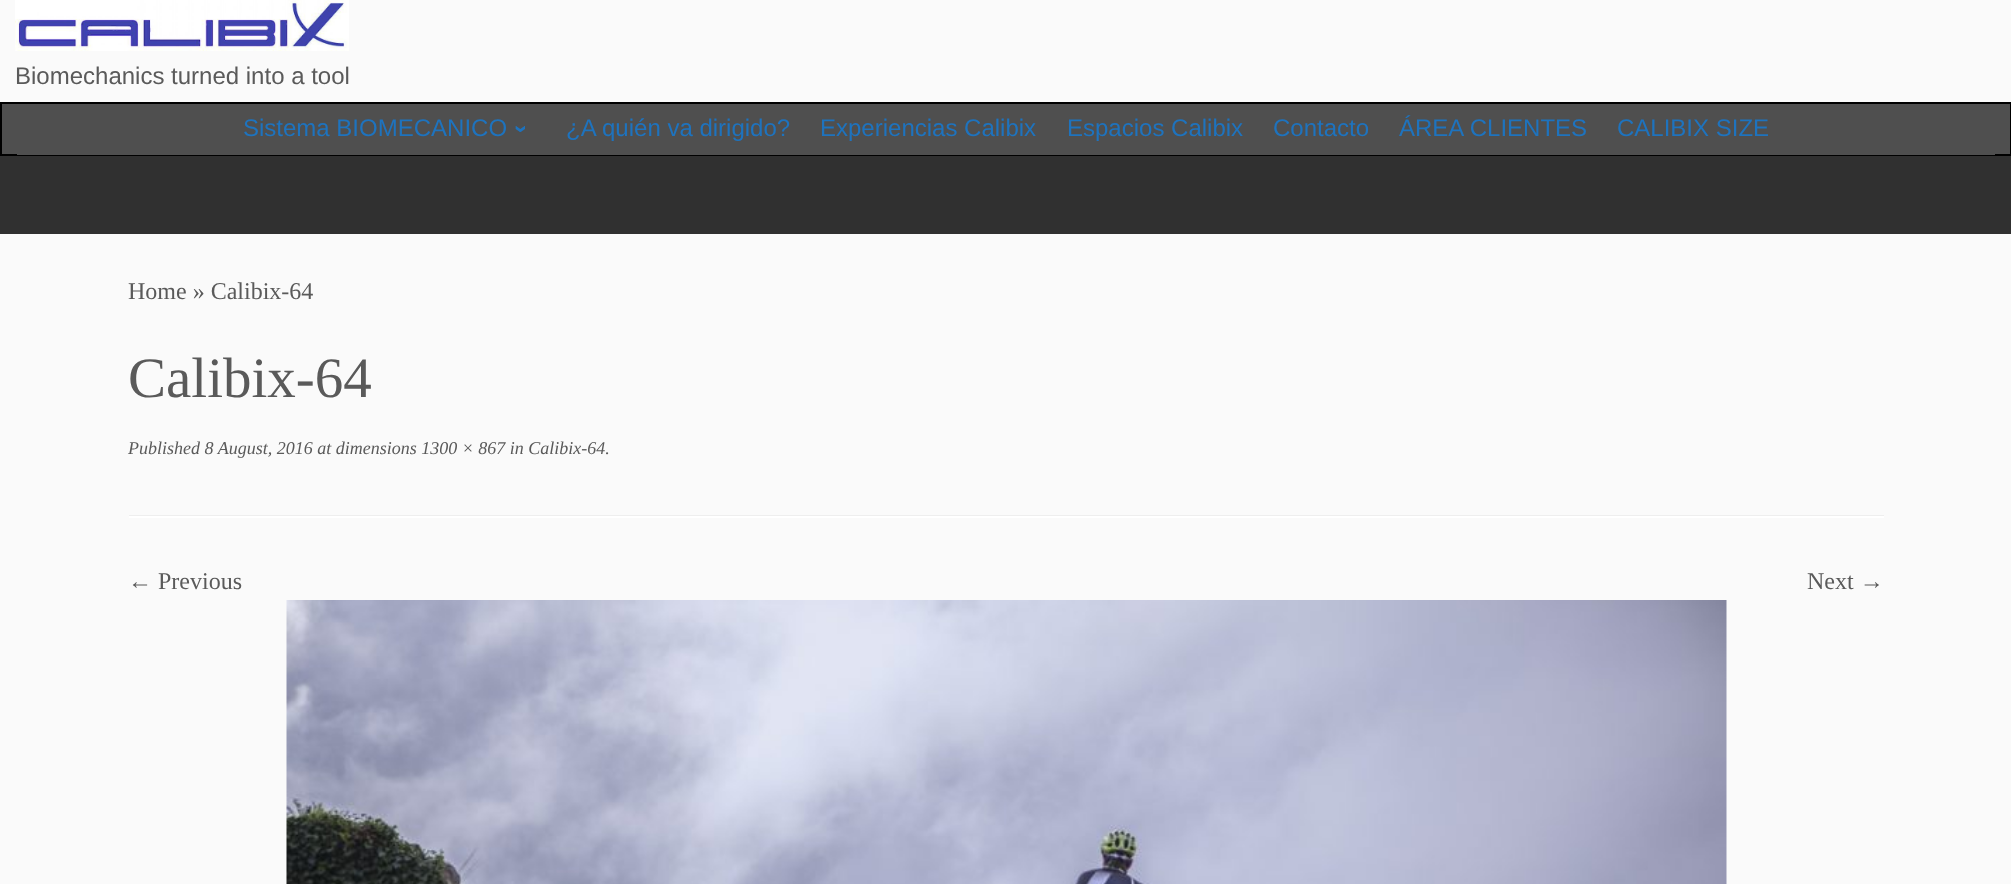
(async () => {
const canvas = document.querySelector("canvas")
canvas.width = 2011
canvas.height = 884
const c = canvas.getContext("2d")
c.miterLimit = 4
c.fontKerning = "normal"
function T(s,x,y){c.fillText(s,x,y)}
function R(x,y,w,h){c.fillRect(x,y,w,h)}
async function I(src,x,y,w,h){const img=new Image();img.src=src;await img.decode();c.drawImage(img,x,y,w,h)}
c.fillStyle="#fafafa"
R(0,0,2011,884)
await I("1.png",15,0,334,51)
c.font="24px Liberation Sans"
c.fillStyle="#5a5a5a"
T("Biomechanics turned into a tool",15,84)
c.fillStyle="#4f4f4f"
c.beginPath()
c.rect(1,103,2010,52)
c.fill()
c.strokeStyle="#000"
c.lineWidth=2
c.stroke()
R(17,154,1978,1)
c.fillStyle="#1e73be"
T("Sistema BIOMECANICO",243,136)
c.font="bold 24px Liberation Sans"
c.save()
c.translate(514,125)
c.rotate(90 * Math.PI / 180)
c.fillText("›",0,0)
c.restore()
c.font="24px Liberation Sans"
T("¿A quién va dirigido?",566,136)
T("Experiencias Calibix",820,136)
T("Espacios Calibix",1067,136)
T("Contacto",1273,136)
T("ÁREA CLIENTES",1399,136)
T("CALIBIX SIZE",1617,136)
c.fillStyle="#303030"
R(0,156,2011,78)
c.font="24px Liberation Serif"
c.fillStyle="#5a5a5a"
T("Home » Calibix-64",128,299)
c.font="57px Liberation Serif"
T("Calibix-64",128,397)
c.font="italic 18px Liberation Serif"
T("Published 8 August, 2016 at dimensions 1300 × 867 in Calibix-64.",128,454)
c.fillStyle="#eee"
R(129,515,1755,1)
c.fillStyle="#fff"
R(129,516,1755,2)
c.font="24px Liberation Serif"
c.fillStyle="#5a5a5a"
T("← Previous",128,589)
T("Next →",1807,589)
await I("2.png",286,600,1441,284)
})()
